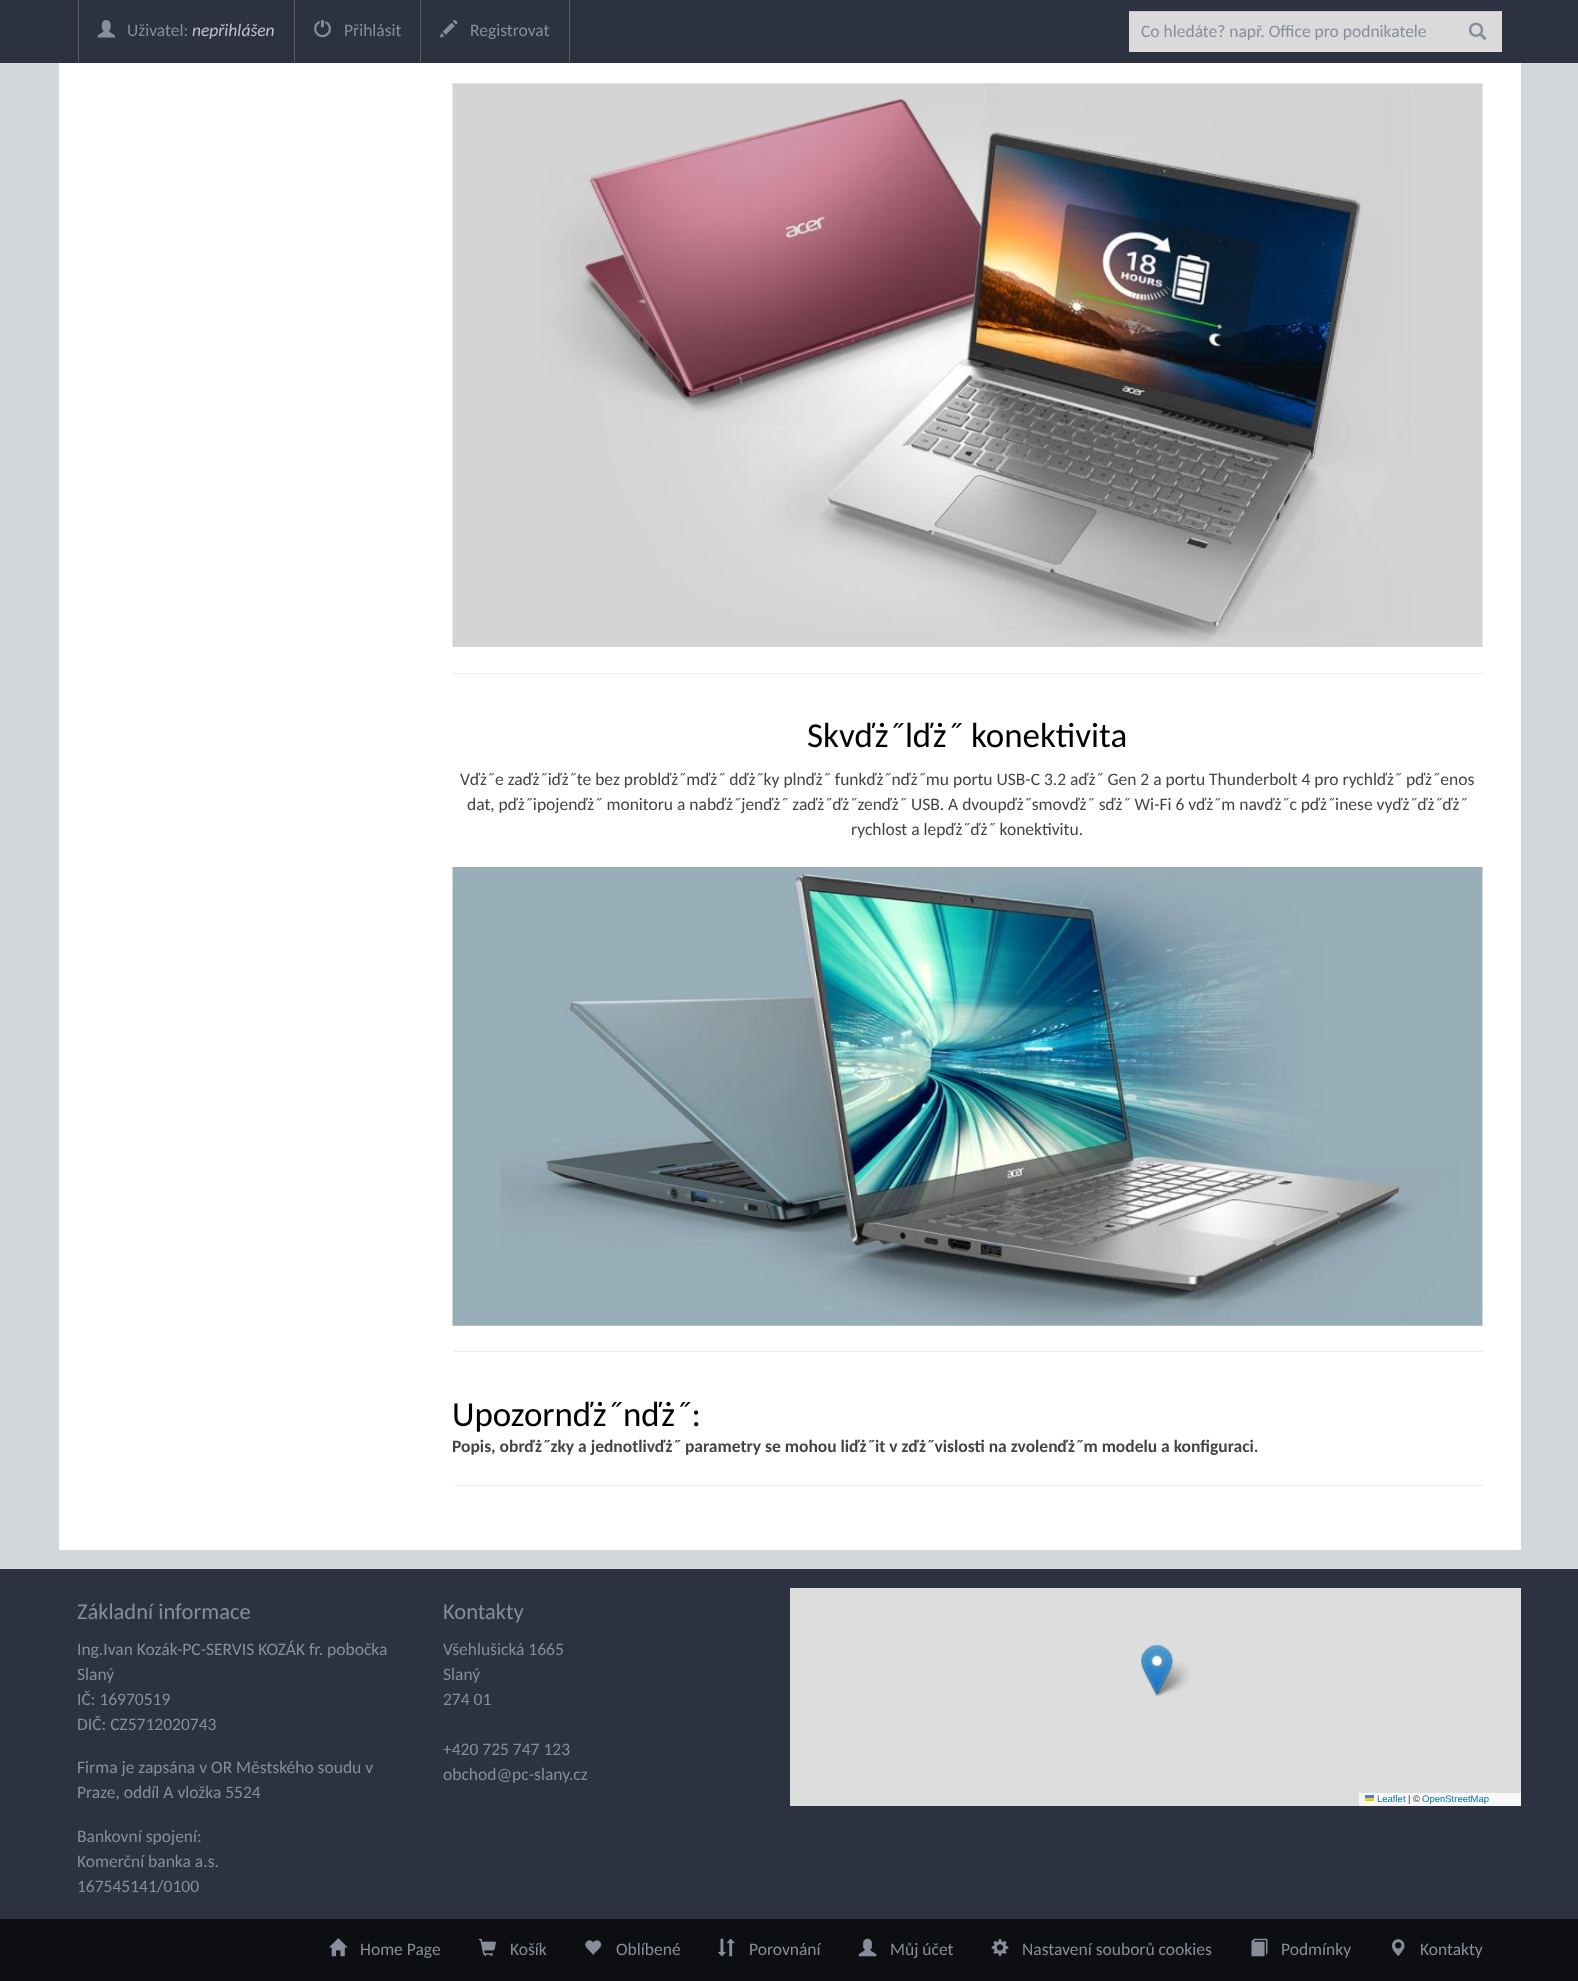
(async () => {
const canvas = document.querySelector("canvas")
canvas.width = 1578
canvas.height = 1981
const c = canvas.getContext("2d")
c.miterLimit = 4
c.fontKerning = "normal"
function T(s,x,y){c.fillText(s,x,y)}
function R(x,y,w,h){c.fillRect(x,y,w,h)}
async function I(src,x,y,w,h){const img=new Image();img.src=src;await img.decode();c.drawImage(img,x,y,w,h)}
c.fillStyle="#d3d6db"
R(0,0,1578,1981)
c.fillStyle="#2c323f"
R(0,0,1578,63)
c.fillStyle="#565b67"
R(78,0,1,63)
await I("1.png",97,20,18,18)
c.font="17.5px Carlito"
c.fillStyle="#888d9b"
T("Uživatel:",127,36)
c.font="italic 17.5px Carlito"
c.fillStyle="#bfc2ca"
T("nepřihlášen",192,36)
c.fillStyle="#565b67"
R(294,0,1,63)
await I("2.png",314,20,17,18)
c.font="17.5px Carlito"
c.fillStyle="#888d9b"
T("Přihlásit",344,36)
c.fillStyle="#565b67"
R(569,0,1,63)
R(420,0,1,63)
await I("3.png",439,19,19,19)
c.fillStyle="#888d9b"
T("Registrovat",470,36)
c.fillStyle="#dbdada"
R(1129,11,373,41)
c.fillStyle="#cbcaca"
R(1129,11,372,1)
c.fillStyle="#888d9b"
T("Co hledáte? např. Office pro podnikatele",1141,37)
await I("4.png",1468,22,19,18)
c.fillStyle="#fff"
R(59,63,1462,1487)
await I("5.png",452,83,1031,564)
c.fillStyle="#eee"
R(453,673,1031,1)
c.font="35px Carlito"
c.fillStyle="#000"
T("Skvďż˝lďż˝ konektivita",807,747)
c.font="17.5px Carlito"
c.fillStyle="#444"
T("Vďż˝e zaďż˝iďż˝te bez problďż˝mďż˝ dďż˝ky plnďż˝ funkďż˝nďż˝mu portu USB-C 3.2 aďż˝ Gen 2 a portu Thunderbolt 4 pro rychlďż˝ pďż˝enos",460,785)
T("dat, pďż˝ipojenďż˝ monitoru a nabďż˝jenďż˝ zaďż˝ďż˝zenďż˝ USB. A dvoupďż˝smovďż˝ sďż˝ Wi-Fi 6 vďż˝m navďż˝c pďż˝inese vyďż˝ďż˝ďż˝",467,810)
T("rychlost a lepďż˝ďż˝ konektivitu.",851,835)
await I("6.png",452,867,1031,459)
c.fillStyle="#eee"
R(453,1351,1031,1)
c.font="35px Carlito"
c.fillStyle="#000"
T("Upozornďż˝nďż˝:",452,1426)
c.font="bold 17.5px Carlito"
c.fillStyle="#444"
T("Popis, obrďż˝zky a jednotlivďż˝ parametry se mohou liďż˝it v zďż˝vislosti na zvolenďż˝m modelu a konfiguraci.",452,1452)
c.fillStyle="#eee"
R(453,1485,1031,1)
c.fillStyle="#2c323f"
R(0,1569,1578,350)
c.font="22.5px Carlito"
c.fillStyle="#888d9b"
T("Základní informace",77,1619)
c.font="17.5px Carlito"
T("Ing.Ivan Kozák-PC-SERVIS KOZÁK fr. pobočka",77,1655)
T("Slaný",77,1680)
T("IČ: 16970519",77,1705)
T("DIČ: CZ5712020743",77,1730)
T("Firma je zapsána v OR Městského soudu v",77,1773)
T("Praze, oddíl A vložka 5524",77,1798)
T("Bankovní spojení:",77,1842)
T("Komerční banka a.s.",77,1867)
T("167545141/0100",77,1892)
c.font="22.5px Carlito"
T("Kontakty",443,1619)
c.font="17.5px Carlito"
T("Všehlušická 1665",443,1655)
T("Slaný",443,1680)
T("274 01",443,1705)
T("+420 725 747 123",443,1755)
T("obchod@pc-slany.cz",443,1780)
c.fillStyle="#ddd"
R(790,1588,731,218)
await I("8.png",1152,1661,38,35)
await I("7.png",1141,1644,32,53)
c.fillStyle="#f8f8f8"
R(1359,1793,162,13)
await I("9.png",1365,1795,9,6)
c.font="9.5px Liberation Sans"
c.fillStyle="#0078a8"
T("Leaflet",1377,1802)
c.fillStyle="#333"
T("| ©",1408,1802)
c.fillStyle="#0078a8"
T("OpenStreetMap",1422,1802)
c.fillStyle="#0d0e12"
R(0,1919,1578,62)
await I("10.png",329,1938,19,19)
c.font="17.5px Carlito"
c.fillStyle="#888d9b"
T("Home Page",360,1955)
await I("11.png",478,1938,18,19)
T("Košík",510,1955)
await I("12.png",585,1940,17,15)
T("Oblíbené",616,1955)
await I("13.png",718,1938,17,19)
T("Porovnání",749,1955)
await I("14.png",858,1938,19,19)
T("Můj účet",890,1955)
await I("15.png",991,1939,18,17)
T("Nastavení souborů cookies",1022,1955)
await I("16.png",1251,1938,17,19)
T("Podmínky",1281,1955)
await I("17.png",1392,1939,13,17)
T("Kontakty",1420,1955)
})()
